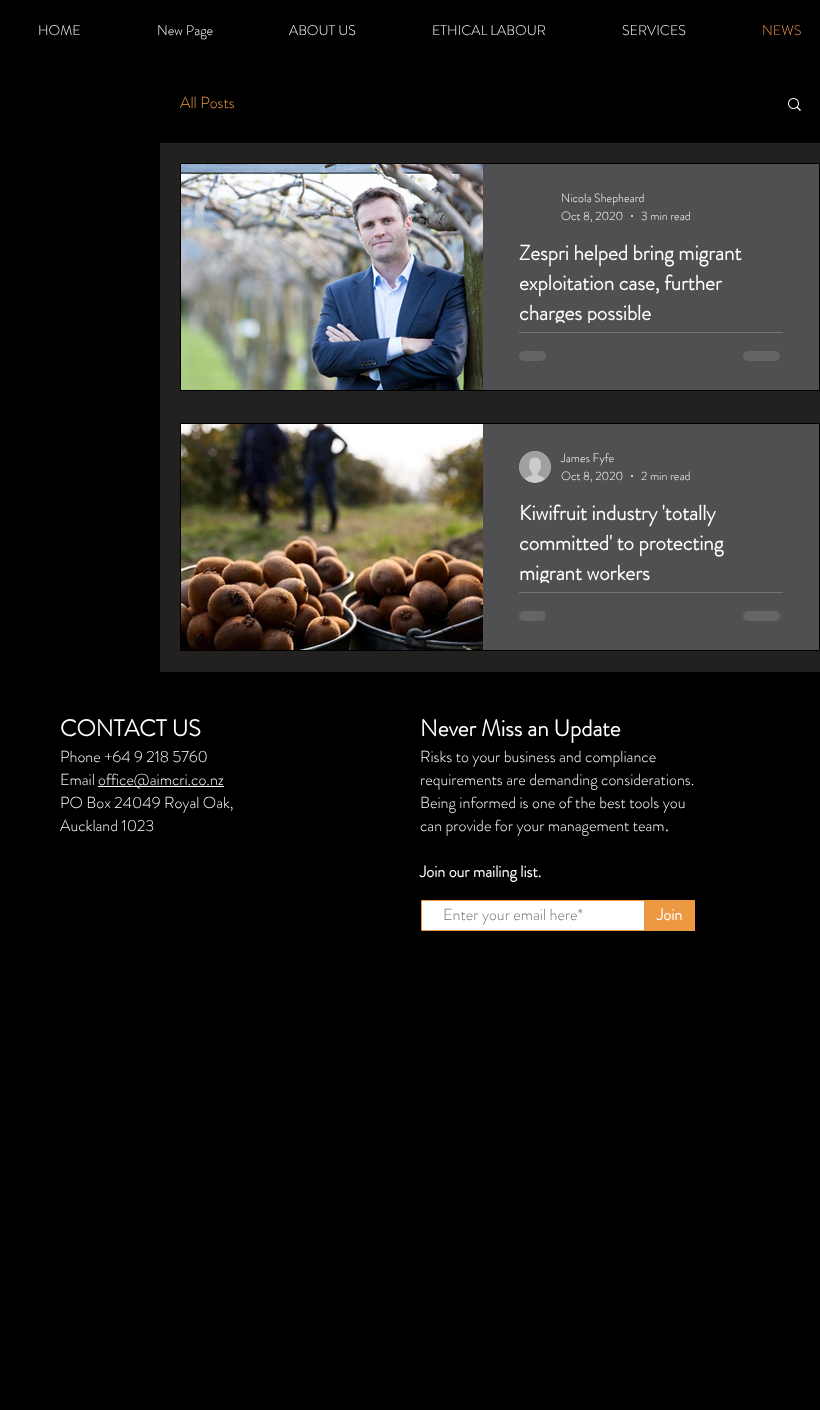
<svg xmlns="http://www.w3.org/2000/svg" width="820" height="1410">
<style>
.a{font:300 14px 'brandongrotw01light';fill:#fff}
.b{font:300 14px 'brandongrotw01light';fill:#ed9942}
.c{font:300 16px 'brandongrotw01light';fill:#ed9942}
.d{font:300 12px 'brandongrotw01light';fill:#fff}
.e{font:bold 21px 'brandongrotw01light';fill:#fff}
.f{font:bold 23px 'brandongrotw01light';fill:#fff}
.g{font:300 16px 'brandongrotw01light';fill:#fff}
.h{font:bold 16px 'brandongrotw01light';fill:#fff}
.i{font:300 16px 'brandongrotw01light';fill:#72716f}
</style>
<defs>
<clipPath id="clip1"><path d="M519 238h264v85H519z"/></clipPath>
<clipPath id="clip2"><path d="M519 498h264v85H519z"/></clipPath>
</defs>
<rect width="100%" height="100%" fill="#000"/>
<path fill="#222120" d="M160 143h660v529H160z"/>
<image href="1.png" x="788" y="98" width="13" height="13"/>
<path fill="none" stroke="#000" d="M180.5 163.5h639v227H180.5z"/>
<image href="2.png" x="181" y="164" width="302" height="226"/>
<path fill="#505052" d="M483 164h336v226H483z"/>
<circle fill="#fff" cx="632" cy="216" r="1"/>
<path fill="#737375" d="M519 332h264v1H519z"/>
<rect fill="#656567" x="519" y="351" width="27" height="10" rx="5"/>
<rect fill="#656567" x="743" y="351" width="37" height="10" rx="5"/>
<path fill="none" stroke="#000" d="M180.5 423.5h639v227H180.5z"/>
<image href="3.png" x="181" y="424" width="302" height="226"/>
<path fill="#505052" d="M483 424h336v226H483z"/>
<image href="4.png" x="519" y="451" width="32" height="32"/>
<circle fill="#fff" cx="632" cy="476" r="1"/>
<path fill="#737375" d="M519 592h264v1H519z"/>
<rect fill="#656567" x="519" y="611" width="27" height="10" rx="5"/>
<rect fill="#656567" x="743" y="611" width="37" height="10" rx="5"/>
<path fill="#fff" d="M98 786h126v1H98z"/>
<path fill="#fff" stroke="#ed9942" d="M421.5 900.5h223v30H421.5z"/>
<path fill="#ed9942" d="M645 900h50v31H645z"/>
<text class="a" x="38" y="35">HOME</text>
<text class="a" x="157" y="35">New Page</text>
<text class="a" x="289" y="35">ABOUT US</text>
<text class="a" x="432" y="35">ETHICAL LABOUR</text>
<text class="a" x="622" y="35">SERVICES</text>
<text class="b" x="762" y="35">NEWS</text>
<text class="c" x="180" y="108">All Posts</text>
<text class="d" x="561" y="202">Nicola Shepheard</text>
<text class="d" x="561" y="220">Oct 8, 2020</text>
<text class="d" x="641" y="220">3 min read</text>
<text class="e" x="519" y="260">Zespri helped bring migrant</text>
<text class="e" x="519" y="290">exploitation case, further</text>
<g clip-path="url(#clip1)">
<text class="e" x="519" y="320">charges possible</text>
</g>
<text class="d" x="561" y="462">James Fyfe</text>
<text class="d" x="561" y="480">Oct 8, 2020</text>
<text class="d" x="641" y="480">2 min read</text>
<text class="e" x="519" y="520">Kiwifruit industry 'totally</text>
<text class="e" x="519" y="550">committed' to protecting</text>
<g clip-path="url(#clip2)">
<text class="e" x="519" y="580">migrant workers</text>
</g>
<text class="f" x="60" y="736">CONTACT US</text>
<text class="g" x="60" y="762">Phone +64 9 218 5760</text>
<text class="g" x="60" y="785">Email</text>
<text class="g" x="98" y="785">office@aimcri.co.nz</text>
<text class="g" x="60" y="808">PO Box 24049 Royal Oak,</text>
<text class="g" x="60" y="831">Auckland 1023</text>
<text class="f" x="420" y="736">Never Miss an Update</text>
<text class="g" x="420" y="762">Risks to your business and compliance</text>
<text class="g" x="420" y="785">requirements are demanding considerations.</text>
<text class="g" x="420" y="808">Being informed is one of the best tools you</text>
<text class="g" x="420" y="831">can provide for your management team</text>
<text class="h" x="665" y="831">.</text>
<text class="h" x="420" y="877">Join our mailing list.</text>
<text class="i" x="443" y="920">Enter your email here*</text>
<text class="h" x="657" y="920">Join</text>
</svg>
